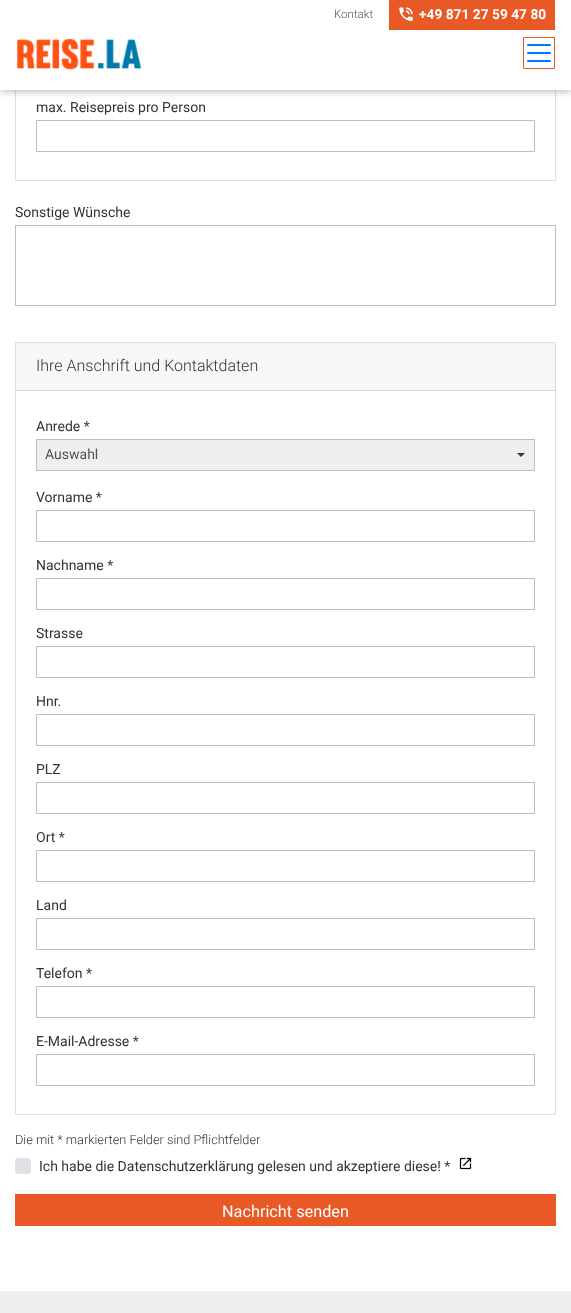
<svg xmlns="http://www.w3.org/2000/svg" width="571" height="1313">
<style>
.a{font:300 11.5px Roboto;fill:#535353}
.b{font:bold 13.75px Roboto;fill:#fff}
.c{font:14px Roboto;fill:#333}
.d{font:300 16px Roboto;fill:#333}
.e{font:14px Roboto;fill:#535353}
.f{font:300 12.75px Roboto;fill:#333}
.g{font:16.25px Roboto;fill:#fff}
</style>
<rect width="100%" height="100%" fill="#fff"/>
<path fill="none" stroke="#dfdfdf" d="M15.5 -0.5h540v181H15.5z"/>
<path fill="#0000004d" filter="blur(4px)" d="M1 1h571v90H1z"/>
<path fill="#fff" d="M0 0h571v90H0z"/>
<path fill="#e85926" d="M389 0h166v30H389z"/>
<image href="1.png" x="399" y="7" width="14" height="14"/>
<image href="2.png" x="16" y="38" width="125" height="32"/>
<path fill="none" stroke="#e85926" d="M523.5 37.5h31v31H523.5z"/>
<image href="3.png" x="527" y="44" width="24" height="18"/>
<path fill="none" stroke="#bdbdbd" d="M36.5 120.5h498v31H36.5z"/>
<path fill="none" stroke="#bdbdbd" d="M15.5 225.5h540v80H15.5z"/>
<path fill="none" stroke="#dfdfdf" d="M15.5 342.5h540v772H15.5z"/>
<path fill="#f7f7f7" d="M19 343h533c1.5 0 3 1.5 3 3v45h-539v-45c0-1.5 1.5-3 3-3z"/>
<path fill="#d8d8d8" d="M16 390h539v1H16z"/>
<path fill="#efefef" stroke="#bdbdbd" d="M36.5 439.5h498v31H36.5z"/>
<path fill="#383838" d="M517 453h8l-4 4z"/>
<path fill="none" stroke="#bdbdbd" d="M36.5 510.5h498v31H36.5z"/>
<path fill="none" stroke="#bdbdbd" d="M36.5 578.5h498v31H36.5z"/>
<path fill="none" stroke="#bdbdbd" d="M36.5 646.5h498v31H36.5z"/>
<path fill="none" stroke="#bdbdbd" d="M36.5 714.5h498v31H36.5z"/>
<path fill="none" stroke="#bdbdbd" d="M36.5 782.5h498v31H36.5z"/>
<path fill="none" stroke="#bdbdbd" d="M36.5 850.5h498v31H36.5z"/>
<path fill="none" stroke="#bdbdbd" d="M36.5 918.5h498v31H36.5z"/>
<path fill="none" stroke="#bdbdbd" d="M36.5 986.5h498v31H36.5z"/>
<path fill="none" stroke="#bdbdbd" d="M36.5 1054.5h498v31H36.5z"/>
<rect fill="#dee2e6" x="15" y="1158" width="16" height="16" rx="4"/>
<image href="4.png" x="459" y="1157" width="13" height="13"/>
<path fill="#e85926" d="M15 1194h541v32H15z"/>
<path fill="#eee" d="M0 1291h571v22H0z"/>
<text class="a" x="334" y="18">Kontakt</text>
<text class="b" x="419" y="19">+49 871 27 59 47 80</text>
<text class="c" x="36" y="112">max. Reisepreis pro Person</text>
<text class="c" x="15" y="217">Sonstige Wünsche</text>
<text class="d" x="36" y="371">Ihre Anschrift und Kontaktdaten</text>
<text class="c" x="36" y="431">Anrede *</text>
<text class="e" x="45" y="459">Auswahl</text>
<text class="c" x="36" y="502">Vorname *</text>
<text class="c" x="36" y="570">Nachname *</text>
<text class="c" x="36" y="638">Strasse</text>
<text class="c" x="36" y="706">Hnr.</text>
<text class="c" x="36" y="774">PLZ</text>
<text class="c" x="36" y="842">Ort *</text>
<text class="c" x="36" y="910">Land</text>
<text class="c" x="36" y="978">Telefon *</text>
<text class="c" x="36" y="1046">E-Mail-Adresse *</text>
<text class="f" x="15" y="1144">Die mit * markierten Felder sind Pflichtfelder</text>
<text class="c" x="39" y="1171">Ich habe die Datenschutzerklärung gelesen und akzeptiere diese! *</text>
<text class="g" x="222" y="1217">Nachricht senden</text>
</svg>
